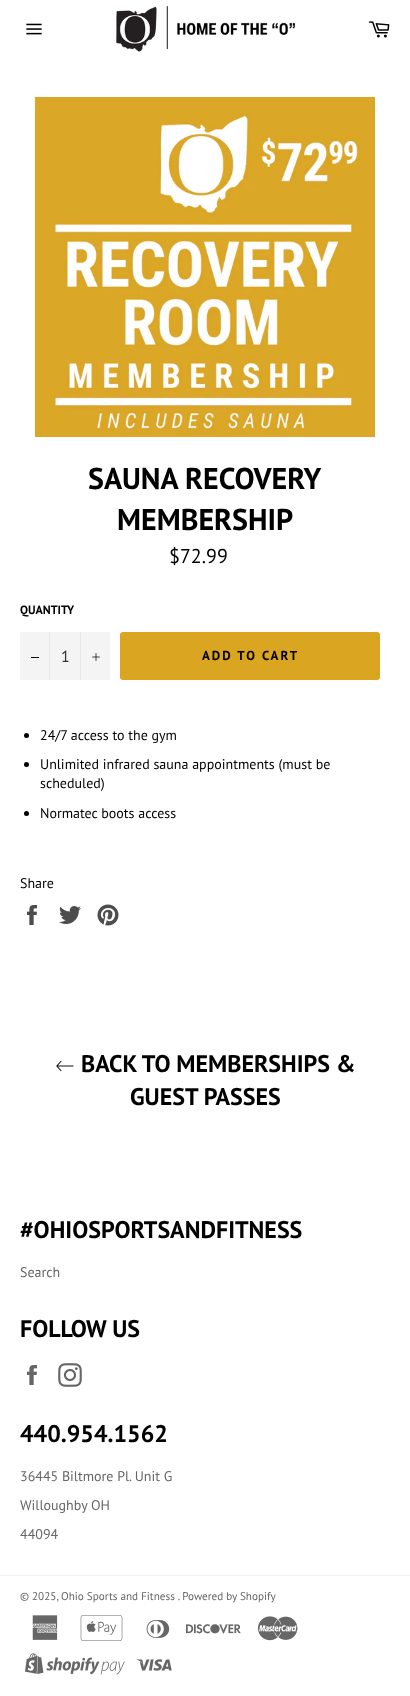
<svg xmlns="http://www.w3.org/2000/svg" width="410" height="1696">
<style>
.a{font:bold 30px PT Sans;fill:#000}
.b{font:20px PT Sans;fill:#000}
.c{font:bold 12px PT Sans;fill:#000}
.d{font:16px PT Sans;fill:#333}
.e{font:bold 13px PT Sans;letter-spacing:2px;fill:#000}
.f{font:14px PT Sans;fill:#000}
.g{font:bold 24px PT Sans;fill:#000}
.h{font:14px PT Sans;fill:#666}
.i{font:11.2px PT Sans;fill:#666}
</style>
<rect width="100%" height="100%" fill="#fff"/>
<image href="1.png" x="26" y="23" width="16" height="12"/>
<image href="2.png" x="116" y="6" width="180" height="46"/>
<image href="3.png" x="368" y="21" width="22" height="17"/>
<image href="4.png" x="35" y="97" width="340" height="340"/>
<path fill="#f4f4f4" d="M20 632h90v48H20z"/>
<path fill="#e7e7e7" d="M49 632h1v48H49z"/>
<path fill="#000" d="M31 657h8v1H31z"/>
<path fill="#e7e7e7" d="M80 632h1v48H80z"/>
<image href="5.png" x="92" y="653" width="8" height="8"/>
<rect fill="#daa520" x="120" y="632" width="260" height="48" rx="3"/>
<circle fill="#000" cx="26.5" cy="735.5" r="2.5"/>
<circle fill="#000" cx="26.5" cy="764.5" r="2.5"/>
<circle fill="#000" cx="26.5" cy="813.5" r="2.5"/>
<image href="6.png" x="27" y="905" width="10" height="20"/>
<image href="7.png" x="59" y="906" width="22" height="18"/>
<image href="8.png" x="97" y="904" width="22" height="22"/>
<image href="9.png" x="56" y="1060" width="18" height="12"/>
<image href="10.png" x="27" y="1365" width="10" height="20"/>
<image href="11.png" x="58" y="1363" width="24" height="24"/>
<path fill="#f2f2f2" d="M0 1575h410v1H0z"/>
<image href="12.png" x="32" y="1615" width="26" height="25"/>
<image href="13.png" x="80" y="1615" width="43" height="26"/>
<image href="14.png" x="146" y="1620" width="24" height="18"/>
<image href="15.png" x="186" y="1624" width="55" height="10"/>
<image href="16.png" x="258" y="1616" width="40" height="25"/>
<image href="17.png" x="25" y="1653" width="100" height="22"/>
<image href="18.png" x="136" y="1659" width="36" height="12"/>
<text class="a" x="88" y="489">SAUNA RECOVERY</text>
<text class="a" x="117" y="530">MEMBERSHIP</text>
<text class="b" x="169" y="563">$72.99</text>
<text class="c" x="20" y="614">QUANTITY</text>
<text class="d" x="61" y="662">1</text>
<text class="e" x="202" y="660">ADD TO CART</text>
<text class="f" x="40" y="740">24/7 access to the gym</text>
<text class="f" x="40" y="769">Unlimited infrared sauna appointments (must be</text>
<text class="f" x="40" y="788">scheduled)</text>
<text class="f" x="40" y="818">Normatec boots access</text>
<text class="f" x="20" y="888">Share</text>
<text class="g" x="81" y="1072">BACK TO MEMBERSHIPS &amp;</text>
<text class="g" x="130" y="1105">GUEST PASSES</text>
<text class="g" x="20" y="1238">#OHIOSPORTSANDFITNESS</text>
<text class="h" x="20" y="1277">Search</text>
<text class="g" x="20" y="1337">FOLLOW US</text>
<text class="g" x="20" y="1442">440.954.1562</text>
<text class="h" x="20" y="1481">36445 Biltmore Pl. Unit G</text>
<text class="h" x="20" y="1510">Willoughby OH</text>
<text class="h" x="20" y="1539">44094</text>
<text class="i" x="20" y="1600">© 2025, Ohio Sports and Fitness . Powered by Shopify</text>
</svg>
